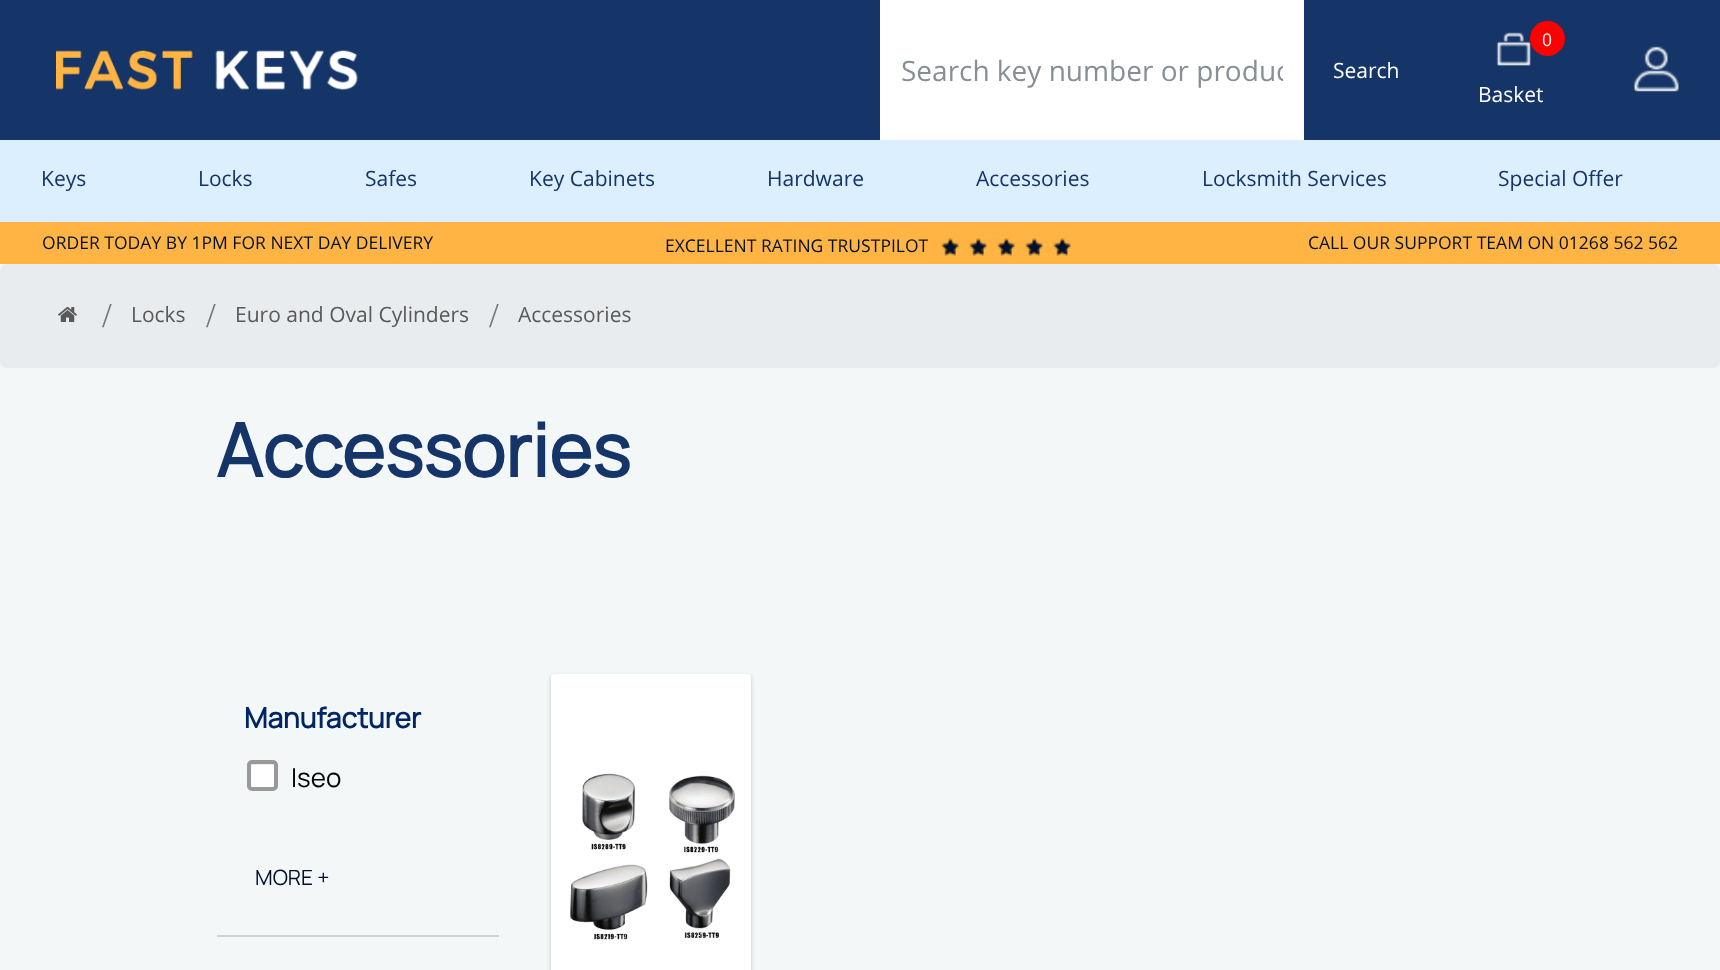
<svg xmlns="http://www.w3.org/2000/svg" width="1720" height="970">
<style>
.a{font:28px Open Sans;fill:#868e96}
.b{font:21px Open Sans;fill:#fff}
.c{font:17.5px Open Sans;fill:#fff}
.d{font:21px Open Sans;fill:#153467}
.e{font:17.5px Open Sans;fill:#011028}
.f{font:35px Liberation Serif;fill:#777}
.g{font:21px Open Sans;fill:#595959}
.h{font:bold 73.5px Manrope;fill:#153467}
.i{font:bold 28px Manrope;fill:#002564}
.j{font:200 26px Manrope;fill:#000}
.k{font:200 21px Manrope;fill:#011028}
</style>
<defs>
<clipPath id="clip1"><path d="M901 51h382v38H901z"/></clipPath>
</defs>
<rect width="100%" height="100%" fill="#f3f7f8"/>
<path fill="#153467" d="M0 0h1720v140H0z"/>
<image href="1.png" x="56" y="50" width="302" height="40"/>
<path fill="#fff" d="M880 0h424v140H880z"/>
<image href="2.png" x="1496" y="32" width="35" height="34"/>
<circle fill="#f00" cx="1547.5" cy="38.5" r="17.5"/>
<image href="3.png" x="1633" y="46" width="46" height="46"/>
<path fill="#dcefff" d="M0 140h1720v82H0z"/>
<path fill="#ffb443" d="M0 222h1720v42H0z"/>
<image href="4.png" x="941" y="238" width="18" height="18"/>
<image href="4.png" x="969" y="238" width="18" height="18"/>
<image href="4.png" x="997" y="238" width="18" height="18"/>
<image href="5.png" x="1025" y="238" width="18" height="18"/>
<image href="5.png" x="1053" y="238" width="18" height="18"/>
<rect fill="#e9ecef" y="264" width="1720" height="104" rx="7"/>
<image href="6.png" x="58" y="307" width="19" height="15"/>
<path fill="#cdd2d4" d="M217 935h282v2H217z"/>
<rect fill="#fff" x="247" y="760" width="31" height="31" rx="5"/>
<path fill="#ececec" d="M252 765h21.5l1.5 1c0-4-2-3-5.5-3h-14c-3.5 0-5.5-1-5.5 3z"/>
<rect fill="none" stroke="#999" stroke-width="4" x="249" y="762" width="27" height="27" rx="3"/>
<rect fill="#00000033" filter="blur(2px)" x="551" y="676" width="200" height="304" rx="4"/>
<rect fill="#fff" x="551" y="674" width="200" height="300" rx="4"/>
<image href="7.png" x="569" y="773" width="166" height="167"/>
<g clip-path="url(#clip1)">
<text class="a" x="901" y="81">Search key number or produc</text>
</g>
<text class="b" x="1333" y="78">Search</text>
<text class="c" x="1542" y="46">0</text>
<text class="b" x="1478" y="102">Basket</text>
<text class="d" x="41" y="186">Keys</text>
<text class="d" x="198" y="186">Locks</text>
<text class="d" x="365" y="186">Safes</text>
<text class="d" x="529" y="186">Key Cabinets</text>
<text class="d" x="767" y="186">Hardware</text>
<text class="d" x="976" y="186">Accessories</text>
<text class="d" x="1202" y="186">Locksmith Services</text>
<text class="d" x="1498" y="186">Special Offer</text>
<text class="e" x="42" y="249">ORDER TODAY BY 1PM FOR NEXT DAY DELIVERY</text>
<text class="e" x="665" y="252">EXCELLENT RATING TRUSTPILOT</text>
<text class="e" x="1308" y="249">CALL OUR SUPPORT TEAM ON 01268 562 562</text>
<text class="f" x="102" y="327">/</text>
<text class="g" x="131" y="322">Locks</text>
<text class="f" x="206" y="327">/</text>
<text class="g" x="235" y="322">Euro and Oval Cylinders</text>
<text class="f" x="489" y="327">/</text>
<text class="g" x="518" y="322">Accessories</text>
<text class="h" x="216" y="477">Accessories</text>
<text class="i" x="244" y="728">Manufacturer</text>
<text class="j" x="291" y="787">Iseo</text>
<text class="k" x="255" y="885">MORE +</text>
</svg>
